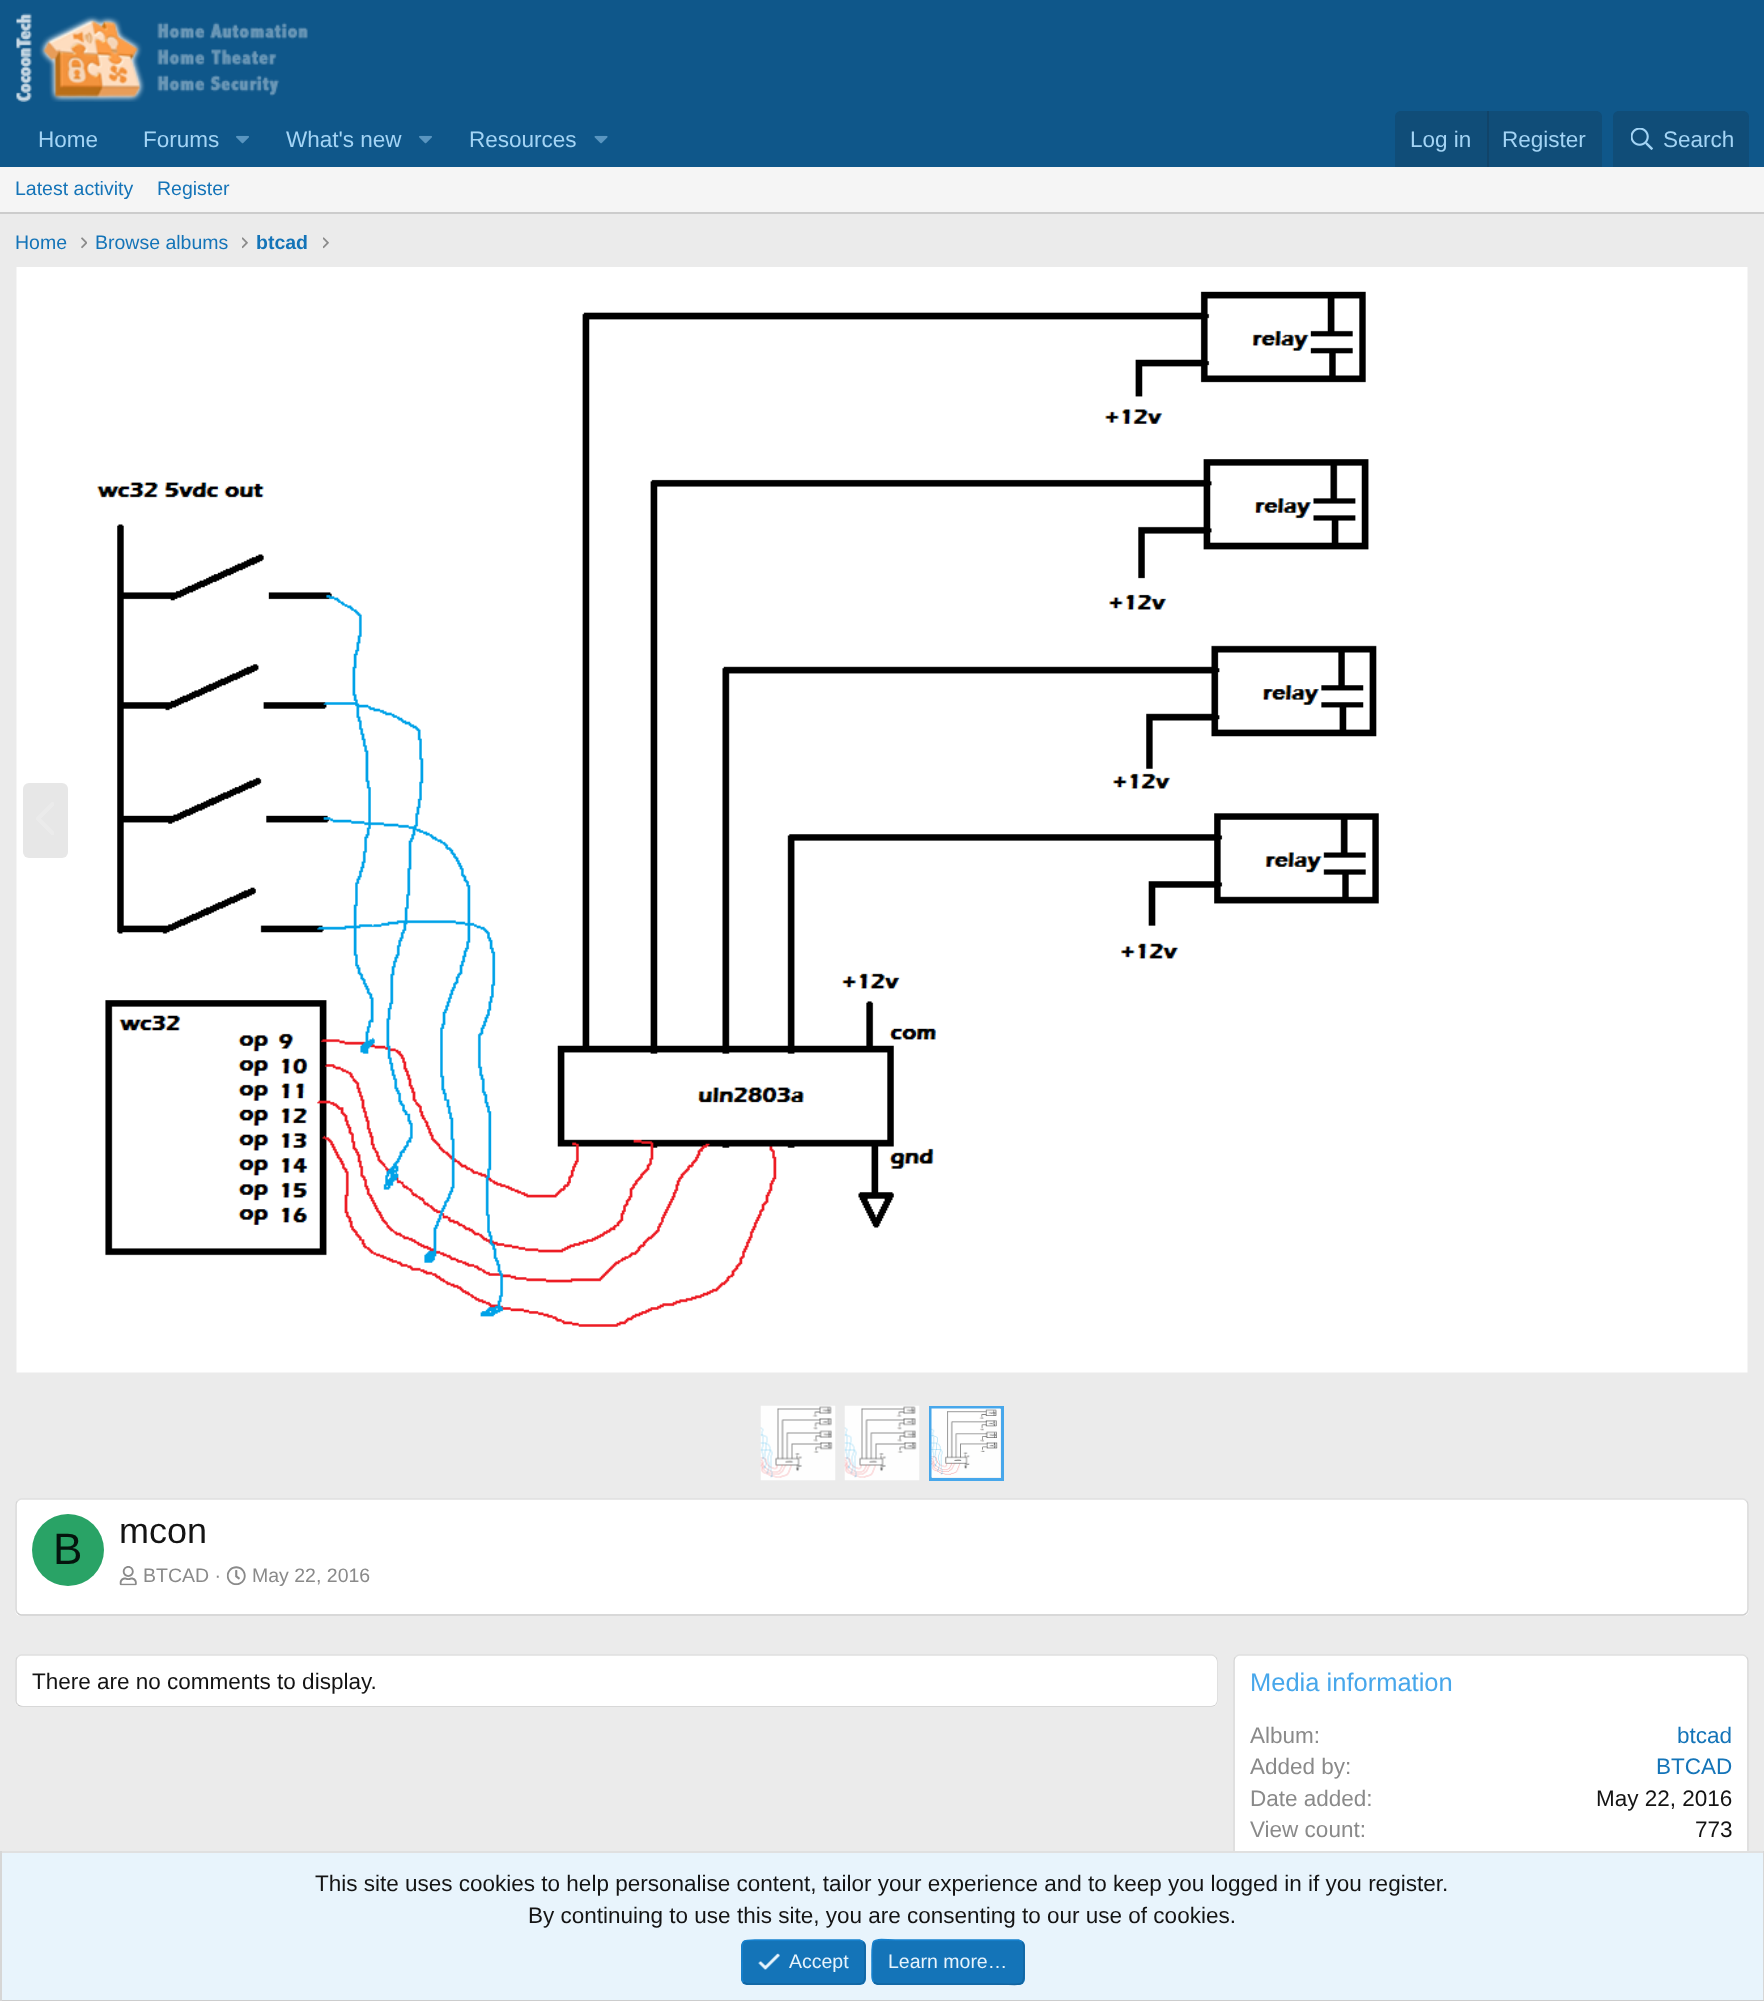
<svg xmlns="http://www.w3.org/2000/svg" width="1764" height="2001">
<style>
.a{font:22.5px Liberation Sans;fill:#a3d4f5}
.b{font:19.5px Liberation Sans;fill:#1474b8}
.c{font:bold 19.5px Liberation Sans;fill:#1474b8}
.d{font:44px Liberation Sans;fill:#05140d}
.e{font:36px Liberation Sans;fill:#141414}
.f{font:19.5px Liberation Sans;fill:#8a8a8a}
.g{font:22.5px Liberation Sans;fill:#141414}
.h{font:25.5px Liberation Sans;fill:#47a7eb}
.i{font:22.5px Liberation Sans;fill:#8a8a8a}
.j{font:22.5px Liberation Sans;fill:#1474b8}
.k{font:19.5px Liberation Sans;fill:#e8f4fc}
</style>
<rect width="100%" height="100%" fill="#ebebeb"/>
<path fill="#0f578a" d="M0 0h1764v167H0z"/>
<image href="1.png" x="16" y="13" width="292" height="89"/>
<image href="2.png" x="236" y="135" width="13" height="9"/>
<image href="2.png" x="419" y="135" width="13" height="9"/>
<image href="3.png" x="594" y="135" width="14" height="9"/>
<path fill="#104d78" d="M1401 111h195c3.5 0 6 2.5 6 6v50h-207v-50c0-3.5 2.5-6 6-6z"/>
<path fill="#114469" d="M1487 111h2v56H1487z"/>
<path fill="#104d78" d="M1619 111h124c3.5 0 6 2.5 6 6v50h-136v-50c0-3.5 2.5-6 6-6z"/>
<image href="4.png" x="1631" y="128" width="22" height="22"/>
<path fill="#f5f5f5" d="M0 167h1764v45H0z"/>
<path fill="#ccc" d="M0 212h1764v2H0z"/>
<image href="5.png" x="81" y="237" width="6" height="12"/>
<image href="6.png" x="242" y="237" width="6" height="12"/>
<image href="6.png" x="323" y="237" width="6" height="12"/>
<image href="7.png" x="16" y="267" width="1732" height="1106"/>
<rect fill="#e7e7e7" x="23" y="783" width="45" height="75" rx="6"/>
<image href="8.png" x="36" y="802" width="18" height="33"/>
<image href="9.png" x="760" y="1405" width="76" height="76"/>
<image href="9.png" x="844" y="1405" width="76" height="76"/>
<path fill="none" stroke="#47a7eb" stroke-width="3" d="M930.5 1407.5h72v72H930.5z"/>
<image href="10.png" x="931" y="1408" width="70" height="70"/>
<rect fill="#fff" x="15" y="1499" width="1734" height="117" rx="6"/>
<path fill="none" stroke="#e0e0e0" stroke-width="1.5" d="M17.5 1501c1-1 2-2 3.5-2h1722c1.5 0 2.5 1 3.5 2"/>
<path fill="none" stroke="#d6d6d6" stroke-width="1.5" d="M1746.5 1501c1 1 1.5 2 1.5 3.5v105c0 1.5-.5 2.5-1.5 3.5"/>
<path fill="none" stroke="#ccc" stroke-width="1.5" d="M1746.5 1613c-1 1-2 2-3.5 2h-1722c-1.5 0-2.5-1-3.5-2"/>
<path fill="none" stroke="#d6d6d6" stroke-width="1.5" d="M17.5 1613c-1-1-1.5-2-1.5-3.5v-105c0-1.5 .5-2.5 1.5-3.5"/>
<circle fill="#29a366" cx="68" cy="1550" r="36"/>
<image href="11.png" x="119" y="1566" width="18" height="20"/>
<image href="12.png" x="226" y="1566" width="20" height="20"/>
<rect fill="#fff" x="15" y="1655" width="1203" height="52" rx="6"/>
<path fill="none" stroke="#e0e0e0" stroke-width="1.5" d="M17.5 1657c1-1 2-2 3.5-2h1191c1.5 0 2.5 1 3.5 2"/>
<path fill="none" stroke="#d6d6d6" stroke-width="1.5" d="M1215.5 1657c1 1 1.5 2 1.5 3.5v40.5c0 1.5-.5 2.5-1.5 3.5"/>
<path fill="none" stroke="#ccc" stroke-width="1.5" d="M1215.5 1704.5c-1 1-2 1.5-3.5 1.5h-1191c-1.5 0-2.5-.5-3.5-1.5"/>
<path fill="none" stroke="#d6d6d6" stroke-width="1.5" d="M17.5 1704.5c-1-1-1.5-2-1.5-3.5v-40.5c0-1.5 .5-2.5 1.5-3.5"/>
<rect fill="#fff" x="17" y="1656" width="1200" height="50" rx="6"/>
<rect fill="#fff" x="1233" y="1655" width="516" height="295" rx="6"/>
<path fill="none" stroke="#e0e0e0" stroke-width="1.5" d="M1235.5 1657c1-1 2-2 3.5-2h504c1.5 0 2.5 1 3.5 2"/>
<path fill="none" stroke="#d6d6d6" stroke-width="1.5" d="M1746.5 1657c1 1 1.5 2 1.5 3.5v283.5c0 1.5-.5 2.5-1.5 3.5"/>
<path fill="none" stroke="#d6d6d6" stroke-width="1.5" d="M1235.5 1947.5c-1-1-1.5-2-1.5-3.5v-283.5c0-1.5 .5-2.5 1.5-3.5"/>
<path fill="#e8f4fc" d="M2 1853h1761v147H2z"/>
<path fill="#e0e0e0" d="M0 1851h1764v2H0z"/>
<path fill="#d6d6d6" d="M1763 1851h1v150H1763z"/>
<path fill="#ccc" d="M0 2000h1764v1H0z"/>
<path fill="#d6d6d6" d="M0 1851h2v150H0z"/>
<rect fill="#1474b8" x="741" y="1940" width="125" height="45" rx="6"/>
<path fill="none" stroke="#1265a1" stroke-width="1.5" d="M863 1942c2.5 2 2 6 2 9v11c0 25.5 3 22-24 22h-94c-1.5-.5-2.5-1-3.5-2"/>
<path fill="none" stroke="#1782cf" stroke-width="1.5" d="M743.5 1982c-2.5-2-1.5-6-1.5-9v-11c0-25.5-3.5-22 24-22h93.5c1.5 .5 2.5 1 3.5 2"/>
<image href="13.png" x="758" y="1953" width="22" height="17"/>
<rect fill="#1474b8" x="872" y="1940" width="153" height="45" rx="6"/>
<path fill="none" stroke="#1265a1" stroke-width="1.5" d="M1022 1942c2.5 2 2 6 2 9v11c0 27.5 2.5 22-29 22h-117.5c-1.5-.5-2.5-1-3.5-2"/>
<path fill="none" stroke="#1782cf" stroke-width="1.5" d="M874 1982c-2.5-2-2-6-2-9v-11c0-27.5-2.5-22 29-22h117.5c1.5 .5 2.5 1 3.5 2"/>
<text class="a" x="38" y="147">Home</text>
<text class="a" x="143" y="147">Forums</text>
<text class="a" x="286" y="147">What's new</text>
<text class="a" x="469" y="147">Resources</text>
<text class="a" x="1410" y="147">Log in</text>
<text class="a" x="1502" y="147">Register</text>
<text class="a" x="1663" y="147">Search</text>
<text class="b" x="15" y="195">Latest activity</text>
<text class="b" x="157" y="195">Register</text>
<text class="b" x="15" y="249">Home</text>
<text class="b" x="95" y="249">Browse albums</text>
<text class="c" x="256" y="249">btcad</text>
<text class="d" x="53" y="1564">B</text>
<text class="e" x="119" y="1543">mcon</text>
<text class="f" x="143" y="1582">BTCAD ·</text>
<text class="f" x="252" y="1582">May 22, 2016</text>
<text class="g" x="32" y="1689">There are no comments to display.</text>
<text class="h" x="1250" y="1691">Media information</text>
<text class="i" x="1250" y="1743">Album:</text>
<text class="j" x="1677" y="1743">btcad</text>
<text class="i" x="1250" y="1774">Added by:</text>
<text class="j" x="1656" y="1774">BTCAD</text>
<text class="i" x="1250" y="1806">Date added:</text>
<text class="g" x="1596" y="1806">May 22, 2016</text>
<text class="i" x="1250" y="1837">View count:</text>
<text class="g" x="1695" y="1837">773</text>
<text class="g" x="315" y="1891">This site uses cookies to help personalise content, tailor your experience and to keep you logged in if you register.</text>
<text class="g" x="528" y="1923">By continuing to use this site, you are consenting to our use of cookies.</text>
<text class="k" x="789" y="1968">Accept</text>
<text class="k" x="888" y="1968">Learn more…</text>
</svg>
